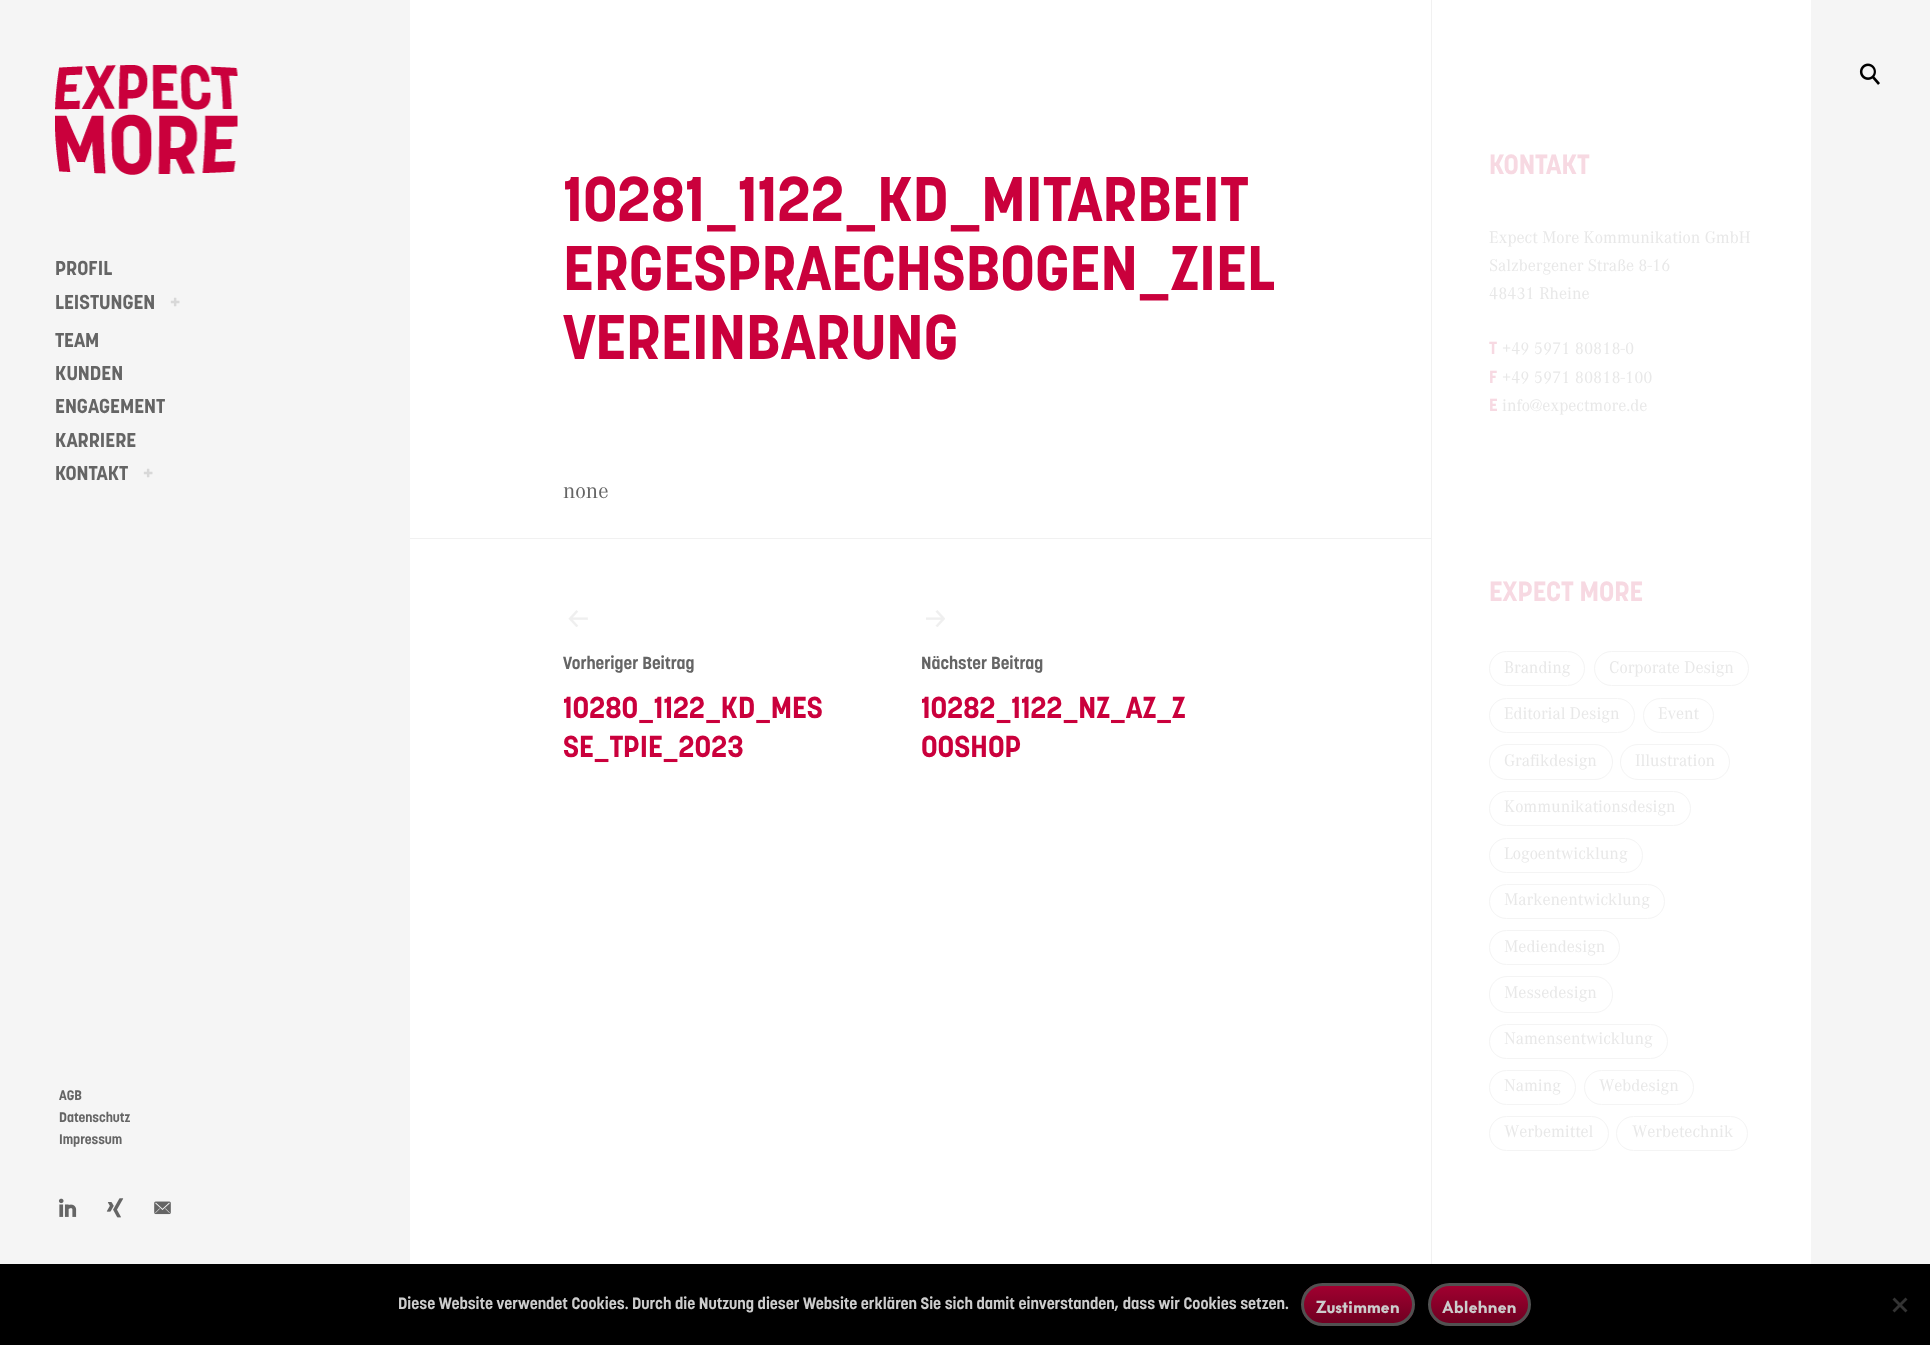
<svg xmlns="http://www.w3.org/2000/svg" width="1930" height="1345">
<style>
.a{font:bold 20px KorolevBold;fill:#656565}
.b{font:bold 20px KorolevBold;fill:#d8d8d8}
.c{font:bold 62.5px KorolevBold;fill:#ca003c}
.d{font:22.5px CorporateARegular;fill:#656565}
.e{font:bold 17.5px KorolevBold;fill:#656565}
.f{font:bold 30px KorolevBold;fill:#ca003c}
.g{font:bold 27.5px KorolevBold;fill:#f7d9e2}
.h{font:17.5px CorporateARegular;fill:#e8e8e8}
.i{font:bold 17.5px KorolevBold;fill:#f7d9e2}
.j{font:bold 13.75px KorolevBold;fill:#656565}
.k{font:bold 16.25px KorolevBold;fill:#ccc}
.l{font:900 16.25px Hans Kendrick;fill:#ccc}
</style>
<defs>
<clipPath id="clip1"><rect x="1301" y="1283" width="114" height="43" rx="21.5"/></clipPath>
<linearGradient id="g1" gradientUnits="userSpaceOnUse" x1="1358" y1="1285" x2="1358" y2="1324"><stop offset="0" stop-color="#a20030"/><stop offset="1" stop-color="#6e0021"/></linearGradient>
<clipPath id="clip2"><rect x="1428" y="1283" width="103" height="43" rx="21.5"/></clipPath>
<linearGradient id="g2" gradientUnits="userSpaceOnUse" x1="1479" y1="1285" x2="1479" y2="1324"><stop offset="0" stop-color="#a20030"/><stop offset="1" stop-color="#6e0021"/></linearGradient>
</defs>
<rect width="100%" height="100%" fill="#f5f5f5"/>
<image href="1.png" x="1859" y="63" width="21" height="22"/>
<image href="2.png" x="55" y="65" width="183" height="110"/>
<path fill="#fff" d="M410 0h1401v1264H410z"/>
<path fill="#f1f1f1" d="M1431 0h1v1264H1431z"/>
<path fill="#f1f1f1" d="M410 538h1021v1H410z"/>
<image href="3.png" x="568" y="610" width="20" height="17"/>
<image href="4.png" x="926" y="610" width="19" height="17"/>
<rect fill="none" stroke="#f4f4f4" x="1489.5" y="651.5" width="95" height="34" rx="17"/>
<rect fill="none" stroke="#f4f4f4" x="1594.5" y="651.5" width="154" height="34" rx="17"/>
<rect fill="none" stroke="#f4f4f4" x="1489.5" y="698.5" width="145" height="34" rx="17"/>
<rect fill="none" stroke="#f4f4f4" x="1643.5" y="698.5" width="70" height="34" rx="17"/>
<rect fill="none" stroke="#f4f4f4" x="1489.5" y="744.5" width="123" height="35" rx="17.5"/>
<rect fill="none" stroke="#f4f4f4" x="1620.5" y="744.5" width="109" height="35" rx="17.5"/>
<rect fill="none" stroke="#f4f4f4" x="1489.5" y="791.5" width="201" height="34" rx="17"/>
<rect fill="none" stroke="#f4f4f4" x="1489.5" y="838.5" width="153" height="34" rx="17"/>
<rect fill="none" stroke="#f4f4f4" x="1489.5" y="884.5" width="175" height="34" rx="17"/>
<rect fill="none" stroke="#f4f4f4" x="1489.5" y="930.5" width="130" height="34" rx="17"/>
<rect fill="none" stroke="#f4f4f4" x="1489.5" y="976.5" width="123" height="36" rx="17.5"/>
<rect fill="none" stroke="#f4f4f4" x="1489.5" y="1024.5" width="178" height="34" rx="17"/>
<rect fill="none" stroke="#f4f4f4" x="1489.5" y="1070.5" width="86" height="34" rx="17"/>
<rect fill="none" stroke="#f4f4f4" x="1584.5" y="1070.5" width="109" height="34" rx="17"/>
<rect fill="none" stroke="#f4f4f4" x="1489.5" y="1116.5" width="119" height="34" rx="17"/>
<rect fill="none" stroke="#f4f4f4" x="1616.5" y="1116.5" width="131" height="34" rx="17"/>
<image href="5.png" x="58" y="1198" width="19" height="19"/>
<image href="6.png" x="106" y="1198" width="18" height="20"/>
<image href="7.png" x="154" y="1201" width="17" height="14"/>
<path fill="#000" d="M0 1264h1930v81H0z"/>
<g clip-path="url(#clip1)">
<path fill="url(#g1)" d="M1304 1285h109v39H1304z"/>
</g>
<rect fill="none" stroke="#515151" stroke-width="3" x="1302.5" y="1284.5" width="111" height="40" rx="20"/>
<g clip-path="url(#clip2)">
<path fill="url(#g2)" d="M1430 1285h99v39H1430z"/>
</g>
<rect fill="none" stroke="#515151" stroke-width="3" x="1429.5" y="1284.5" width="100" height="40" rx="20"/>
<path fill="#333" d="M1905.5 1297.5l2 2l-13 13l-2-2z"/>
<path fill="#333" d="M1892.5 1299.5l2-2l13 13l-2 2z"/>
<text class="a" x="55" y="275">PROFIL</text>
<text class="a" x="55" y="309">LEISTUNGEN</text>
<text class="b" x="170" y="309">+</text>
<text class="a" x="55" y="347">TEAM</text>
<text class="a" x="55" y="380">KUNDEN</text>
<text class="a" x="55" y="413">ENGAGEMENT</text>
<text class="a" x="55" y="447">KARRIERE</text>
<text class="a" x="55" y="480">KONTAKT</text>
<text class="b" x="143" y="480">+</text>
<text class="c" x="563" y="221">10281_1122_KD_MITARBEIT</text>
<text class="c" x="563" y="290">ERGESPRAECHSBOGEN_ZIEL</text>
<text class="c" x="563" y="359">VEREINBARUNG</text>
<text class="d" x="563" y="498">none</text>
<text class="e" x="563" y="669">Vorheriger Beitrag</text>
<text class="f" x="563" y="718">10280_1122_KD_MES</text>
<text class="f" x="563" y="757">SE_TPIE_2023</text>
<text class="e" x="921" y="669">Nächster Beitrag</text>
<text class="f" x="921" y="718">10282_1122_NZ_AZ_Z</text>
<text class="f" x="921" y="757">OOSHOP</text>
<text class="g" x="1489" y="174">KONTAKT</text>
<text class="h" x="1489" y="243">Expect More Kommunikation GmbH</text>
<text class="h" x="1489" y="271">Salzbergener Straße 8-16</text>
<text class="h" x="1489" y="299">48431 Rheine</text>
<text class="i" x="1489" y="354">T</text>
<text class="h" x="1502" y="354">+49 5971 80818-0</text>
<text class="i" x="1489" y="383">F</text>
<text class="h" x="1502" y="383">+49 5971 80818-100</text>
<text class="i" x="1489" y="411">E</text>
<text class="h" x="1502" y="411">info@expectmore.de</text>
<text class="g" x="1489" y="601">EXPECT MORE</text>
<text class="h" x="1504" y="673">Branding</text>
<text class="h" x="1609" y="673">Corporate Design</text>
<text class="h" x="1504" y="719">Editorial Design</text>
<text class="h" x="1658" y="719">Event</text>
<text class="h" x="1504" y="766">Grafikdesign</text>
<text class="h" x="1635" y="766">Illustration</text>
<text class="h" x="1504" y="812">Kommunikationsdesign</text>
<text class="h" x="1504" y="859">Logoentwicklung</text>
<text class="h" x="1504" y="905">Markenentwicklung</text>
<text class="h" x="1504" y="952">Mediendesign</text>
<text class="h" x="1504" y="998">Messedesign</text>
<text class="h" x="1504" y="1044">Namensentwicklung</text>
<text class="h" x="1504" y="1091">Naming</text>
<text class="h" x="1599" y="1091">Webdesign</text>
<text class="h" x="1504" y="1137">Werbemittel</text>
<text class="h" x="1632" y="1137">Werbetechnik</text>
<text class="j" x="59" y="1100">AGB</text>
<text class="j" x="59" y="1122">Datenschutz</text>
<text class="j" x="59" y="1144">Impressum</text>
<text class="k" x="398" y="1309">Diese Website verwendet Cookies. Durch die Nutzung dieser Website erklären Sie sich damit einverstanden, dass wir Cookies setzen.</text>
<text class="l" x="1316" y="1313">Zustimmen</text>
<text class="l" x="1442" y="1313">Ablehnen</text>
</svg>
